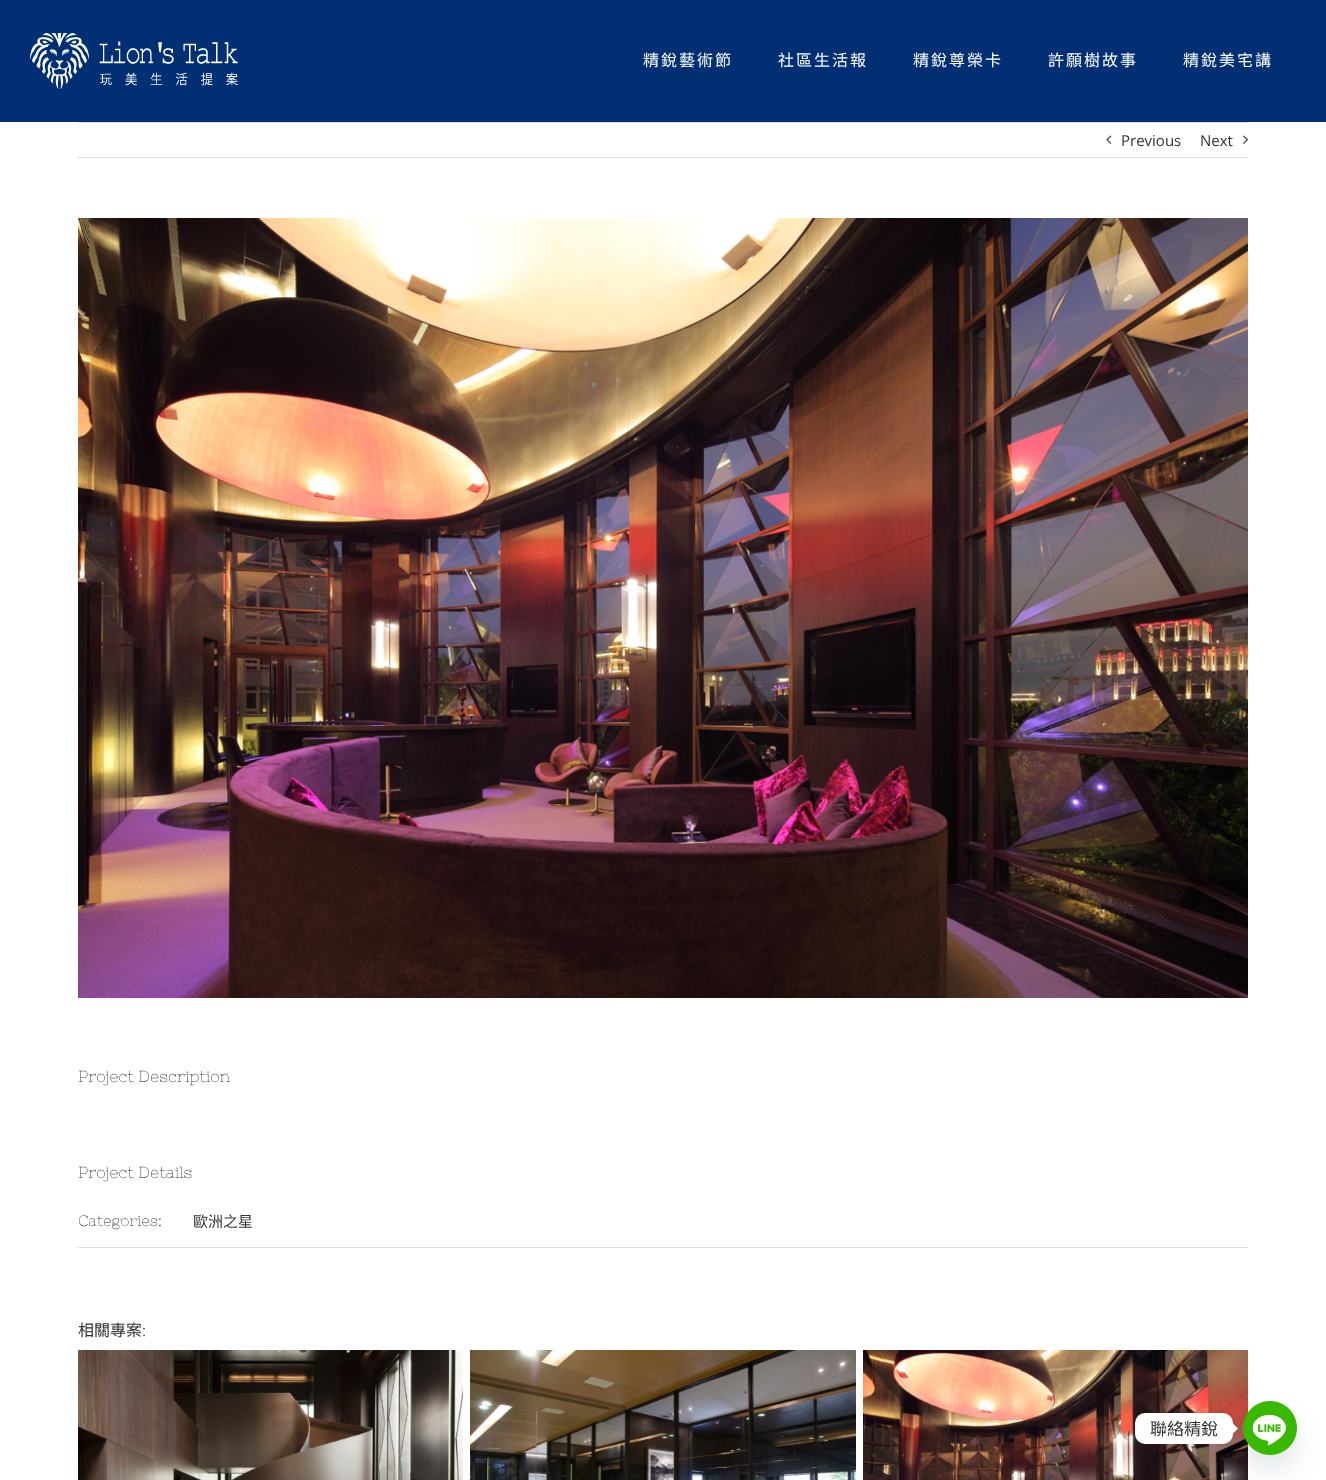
<svg xmlns="http://www.w3.org/2000/svg" width="1326" height="1480">
<style>
.a{font:16px Noto Sans CJK TC;letter-spacing:2px;fill:#fff}
.b{font:15px Open Sans;fill:#333}
.c{font:16px Nixie One;fill:#333}
.d{font:15px Nixie One;fill:#333}
.e{font:15px Noto Sans CJK TC;fill:#333}
.f{font:16px Noto Sans CJK TC;fill:#333}
.g{font:17px Noto Sans CJK TC;fill:#333}
</style>
<rect width="100%" height="100%" fill="#fff"/>
<path fill="#002f74" d="M0 0h1326v122H0z"/>
<image href="1.png" x="30" y="33" width="208" height="56"/>
<path fill="#e0dede" d="M78 122h1170v1H78z"/>
<path fill="#e0dede" d="M78 157h1170v1H78z"/>
<image href="2.png" x="1106" y="135" width="6" height="9"/>
<image href="3.png" x="1243" y="135" width="5" height="9"/>
<image href="4.png" x="78" y="218" width="1170" height="780"/>
<path fill="#e0dede" d="M78 1247h1170v1H78z"/>
<image href="5.png" x="78" y="1350" width="385" height="130"/>
<image href="6.png" x="470" y="1350" width="386" height="130"/>
<image href="7.png" x="863" y="1350" width="385" height="130"/>
<rect fill="#49687e29" filter="blur(12px)" x="1243" y="1417" width="54" height="54" rx="27"/>
<image href="8.png" x="1243" y="1401" width="54" height="54"/>
<rect fill="#00000026" filter="blur(4px)" x="1135" y="1414" width="98" height="31" rx="10"/>
<rect fill="#fff" x="1135" y="1413" width="98" height="31" rx="10"/>
<path fill="#fff" d="M1233 1433.5v-10l5 5z"/>
<text class="a" x="643" y="66">精銳藝術節</text>
<text class="a" x="778" y="66">社區生活報</text>
<text class="a" x="913" y="66">精銳尊榮卡</text>
<text class="a" x="1048" y="66">許願樹故事</text>
<text class="a" x="1183" y="66">精銳美宅講</text>
<text class="b" x="1121" y="146">Previous</text>
<text class="b" x="1200" y="146">Next</text>
<text class="c" x="78" y="1082">Project Description</text>
<text class="c" x="78" y="1178">Project Details</text>
<text class="d" x="78" y="1226">Categories:</text>
<text class="e" x="193" y="1227">歐洲之星</text>
<text class="f" x="78" y="1336">相關專案</text>
<text class="c" x="142" y="1336">:</text>
<text class="g" x="1150" y="1435">聯絡精銳</text>
</svg>
